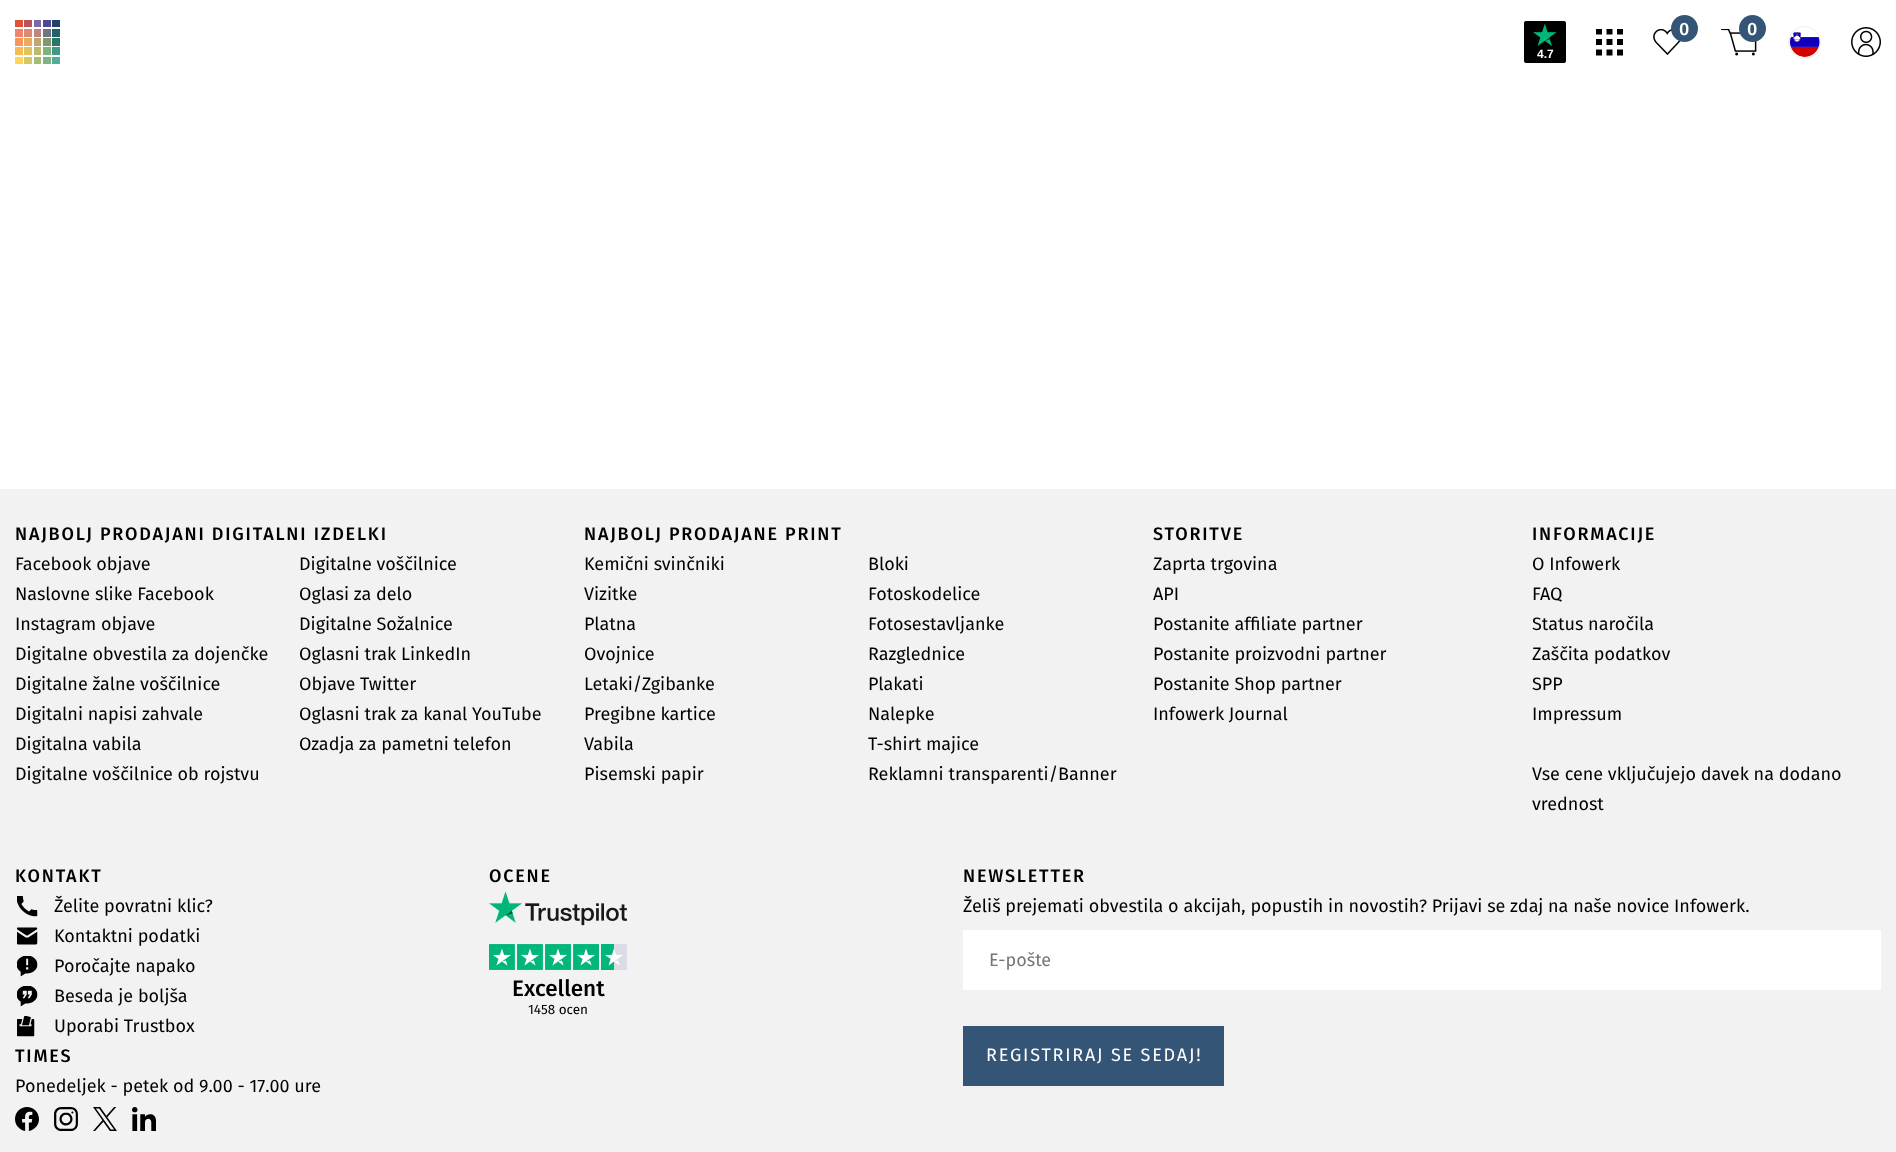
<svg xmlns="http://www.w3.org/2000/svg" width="1896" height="1152">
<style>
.a{font:bold 12px Liberation Sans;fill:#fff}
.b{font:500 18px Fira Sans;fill:#fff}
.c{font:500 18px Fira Sans;letter-spacing:1.8px;fill:#000}
.d{font:18px Fira Sans;fill:#000}
.e{font:500 22.5px Fira Sans;fill:#000}
.f{font:13.5px Fira Sans;fill:#000}
.g{font:18px Fira Sans;fill:#757575}
.h{font:18px Fira Sans;letter-spacing:1.8px;fill:#fff}
</style>
<rect width="100%" height="100%" fill="#fff"/>
<image href="1.png" x="15" y="20" width="45" height="44"/>
<image href="2.png" x="1524" y="21" width="42" height="42"/>
<image href="3.png" x="1596" y="29" width="27" height="27"/>
<image href="4.png" x="1653" y="29" width="28" height="26"/>
<circle fill="#355577" cx="1684.5" cy="28.5" r="13.5"/>
<image href="5.png" x="1721" y="29" width="36" height="27"/>
<circle fill="#355577" cx="1752.5" cy="28.5" r="13.5"/>
<circle fill="none" stroke="#f2f2f2" stroke-width="2" cx="1804.5" cy="42.5" r="15.5"/>
<image href="6.png" x="1790" y="27" width="30" height="30"/>
<image href="7.png" x="1851" y="27" width="30" height="30"/>
<path fill="#f2f2f2" d="M0 489h1896v663H0z"/>
<image href="8.png" x="17" y="896" width="21" height="21"/>
<image href="9.png" x="17" y="927" width="21" height="18"/>
<image href="10.png" x="17" y="956" width="21" height="21"/>
<image href="11.png" x="17" y="986" width="21" height="21"/>
<image href="12.png" x="17" y="1016" width="18" height="21"/>
<image href="13.png" x="15" y="1107" width="24" height="24"/>
<image href="14.png" x="54" y="1107" width="24" height="24"/>
<image href="15.png" x="93" y="1107" width="24" height="24"/>
<image href="16.png" x="132" y="1107" width="24" height="24"/>
<image href="17.png" x="489" y="891" width="138" height="35"/>
<image href="18.png" x="489" y="944" width="138" height="26"/>
<path fill="#fff" d="M963 930h918v60H963z"/>
<path fill="#355577" d="M963 1026h261v60H963z"/>
<text class="a" x="1537" y="58">4.7</text>
<text class="b" x="1679" y="35">0</text>
<text class="b" x="1747" y="35">0</text>
<text class="c" x="15" y="540">NAJBOLJ PRODAJANI DIGITALNI IZDELKI</text>
<text class="d" x="15" y="570">Facebook objave</text>
<text class="d" x="299" y="570">Digitalne voščilnice</text>
<text class="d" x="15" y="600">Naslovne slike Facebook</text>
<text class="d" x="299" y="600">Oglasi za delo</text>
<text class="d" x="15" y="630">Instagram objave</text>
<text class="d" x="299" y="630">Digitalne Sožalnice</text>
<text class="d" x="15" y="660">Digitalne obvestila za dojenčke</text>
<text class="d" x="299" y="660">Oglasni trak LinkedIn</text>
<text class="d" x="15" y="690">Digitalne žalne voščilnice</text>
<text class="d" x="299" y="690">Objave Twitter</text>
<text class="d" x="15" y="720">Digitalni napisi zahvale</text>
<text class="d" x="299" y="720">Oglasni trak za kanal YouTube</text>
<text class="d" x="15" y="750">Digitalna vabila</text>
<text class="d" x="299" y="750">Ozadja za pametni telefon</text>
<text class="d" x="15" y="780">Digitalne voščilnice ob rojstvu</text>
<text class="c" x="584" y="540">NAJBOLJ PRODAJANE PRINT</text>
<text class="d" x="584" y="570">Kemični svinčniki</text>
<text class="d" x="868" y="570">Bloki</text>
<text class="d" x="584" y="600">Vizitke</text>
<text class="d" x="868" y="600">Fotoskodelice</text>
<text class="d" x="584" y="630">Platna</text>
<text class="d" x="868" y="630">Fotosestavljanke</text>
<text class="d" x="584" y="660">Ovojnice</text>
<text class="d" x="868" y="660">Razglednice</text>
<text class="d" x="584" y="690">Letaki/Zgibanke</text>
<text class="d" x="868" y="690">Plakati</text>
<text class="d" x="584" y="720">Pregibne kartice</text>
<text class="d" x="868" y="720">Nalepke</text>
<text class="d" x="584" y="750">Vabila</text>
<text class="d" x="868" y="750">T-shirt majice</text>
<text class="d" x="584" y="780">Pisemski papir</text>
<text class="d" x="868" y="780">Reklamni transparenti/Banner</text>
<text class="c" x="1153" y="540">STORITVE</text>
<text class="d" x="1153" y="570">Zaprta trgovina</text>
<text class="d" x="1153" y="600">API</text>
<text class="d" x="1153" y="630">Postanite affiliate partner</text>
<text class="d" x="1153" y="660">Postanite proizvodni partner</text>
<text class="d" x="1153" y="690">Postanite Shop partner</text>
<text class="d" x="1153" y="720">Infowerk Journal</text>
<text class="c" x="1532" y="540">INFORMACIJE</text>
<text class="d" x="1532" y="570">O Infowerk</text>
<text class="d" x="1532" y="600">FAQ</text>
<text class="d" x="1532" y="630">Status naročila</text>
<text class="d" x="1532" y="660">Zaščita podatkov</text>
<text class="d" x="1532" y="690">SPP</text>
<text class="d" x="1532" y="720">Impressum</text>
<text class="d" x="1532" y="780">Vse cene vključujejo davek na dodano</text>
<text class="d" x="1532" y="810">vrednost</text>
<text class="c" x="15" y="882">KONTAKT</text>
<text class="d" x="54" y="912">Želite povratni klic?</text>
<text class="d" x="54" y="942">Kontaktni podatki</text>
<text class="d" x="54" y="972">Poročajte napako</text>
<text class="d" x="54" y="1002">Beseda je boljša</text>
<text class="d" x="54" y="1032">Uporabi Trustbox</text>
<text class="c" x="15" y="1062">TIMES</text>
<text class="d" x="15" y="1092">Ponedeljek - petek od 9.00 - 17.00 ure</text>
<text class="c" x="489" y="882">OCENE</text>
<text class="e" x="512" y="996">Excellent</text>
<text class="f" x="528" y="1014">1458 ocen</text>
<text class="c" x="963" y="882">NEWSLETTER</text>
<text class="d" x="963" y="912">Želiš prejemati obvestila o akcijah, popustih in novostih? Prijavi se zdaj na naše novice Infowerk.</text>
<text class="g" x="989" y="966">E-pošte</text>
<text class="h" x="986" y="1061">REGISTRIRAJ SE SEDAJ!</text>
</svg>
